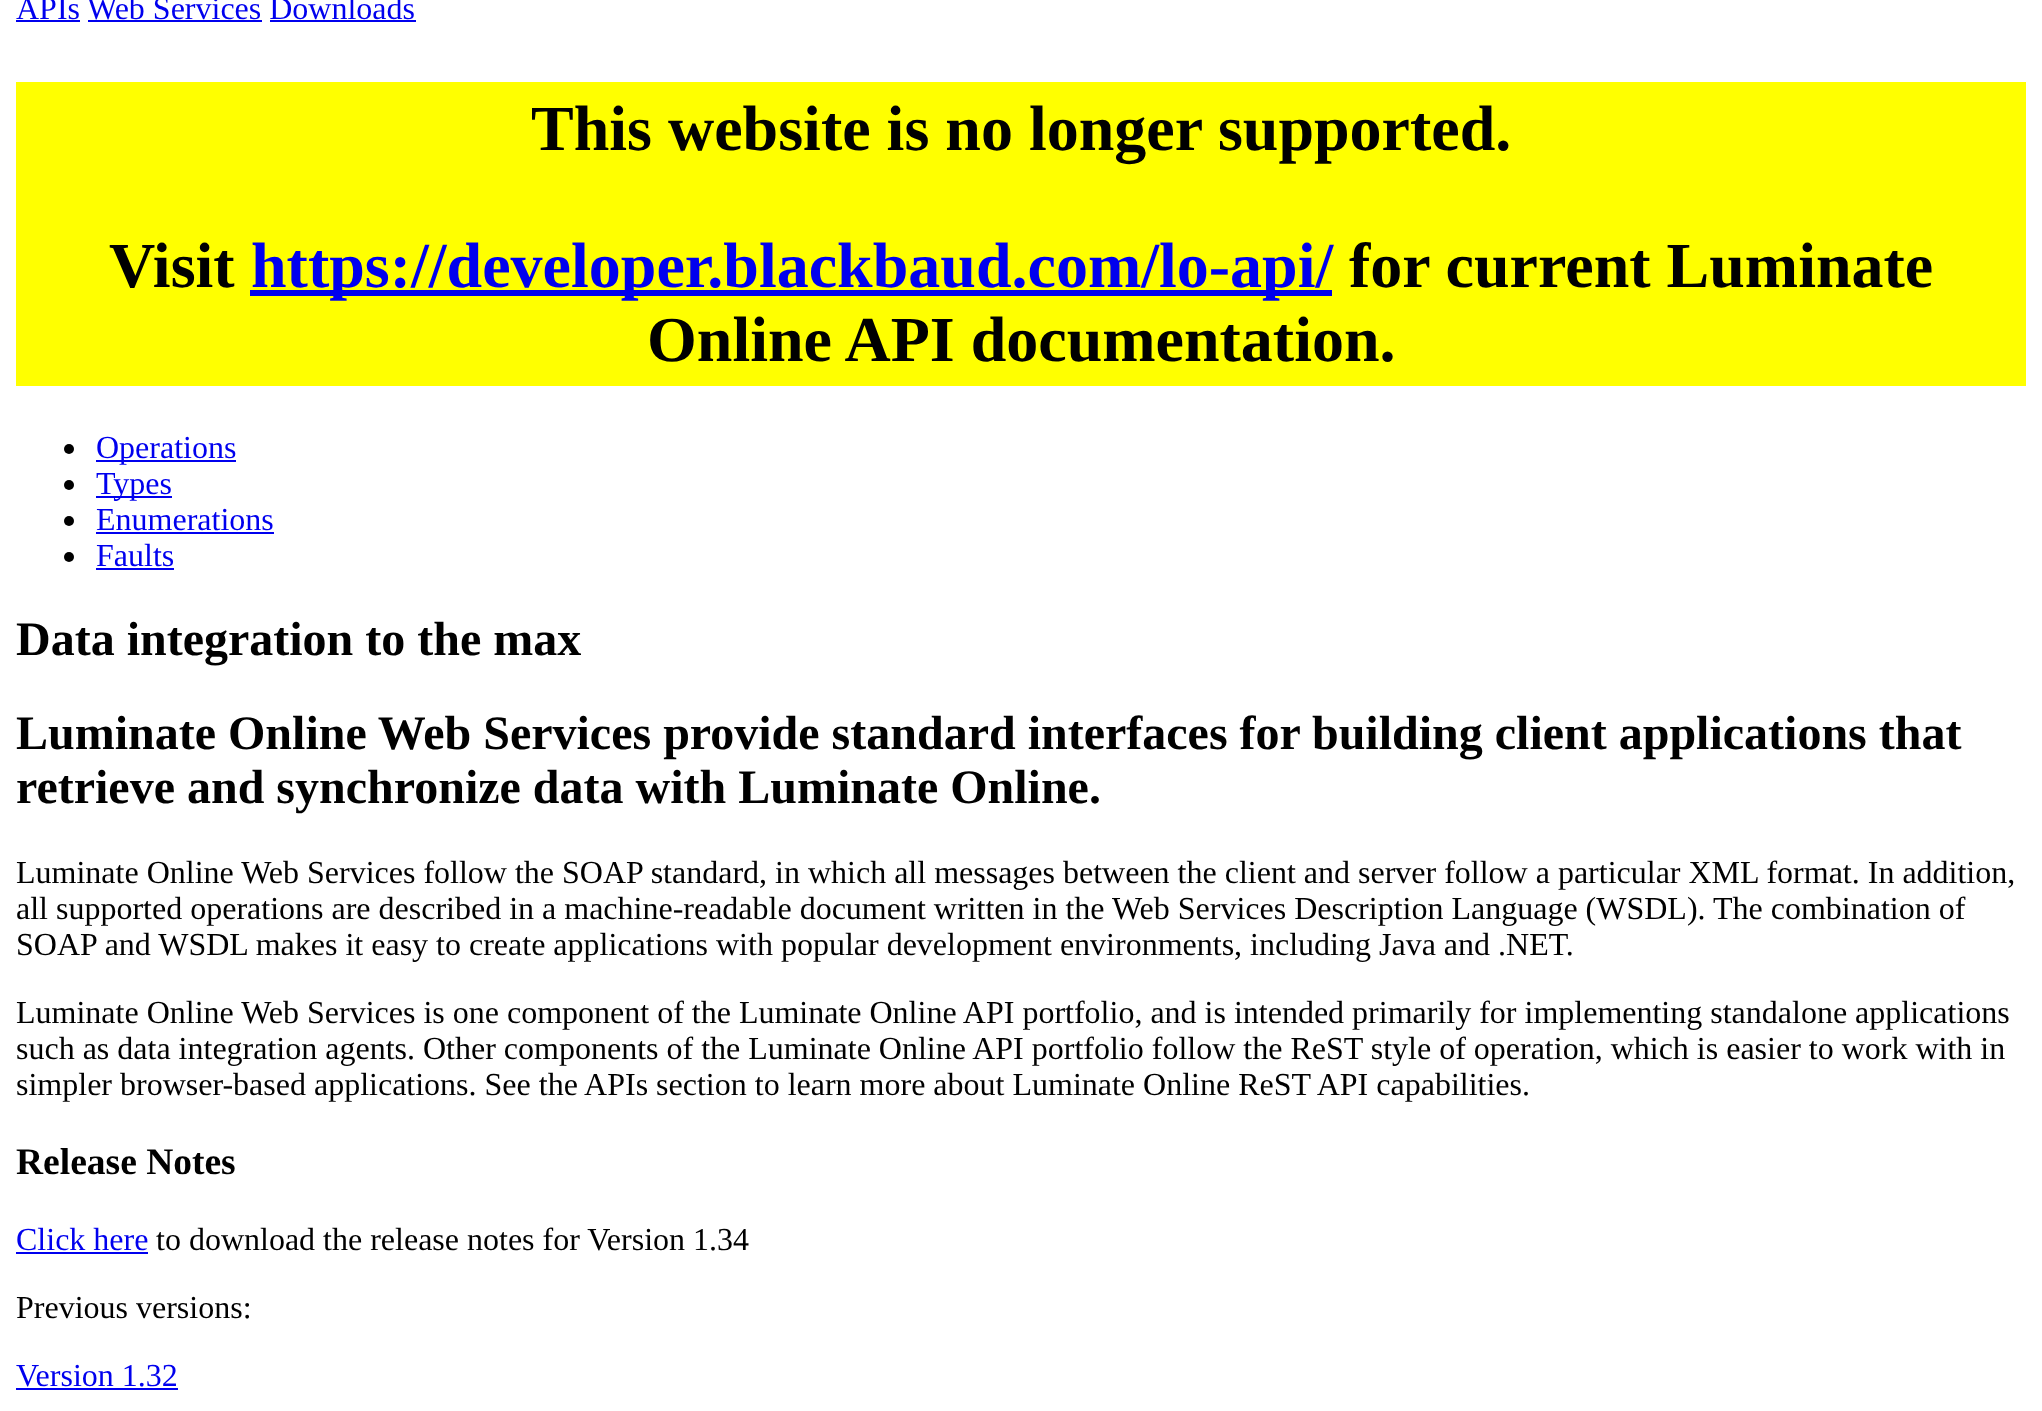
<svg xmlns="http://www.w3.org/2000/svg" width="2042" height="1411">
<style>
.a{font:32px Liberation Serif;fill:#00e}
.b{font:bold 64px Liberation Serif;fill:#000}
.c{font:bold 64px Liberation Serif;fill:#00e}
.d{font:bold 48px Liberation Serif;fill:#000}
.e{font:32px Liberation Serif;fill:#000}
.f{font:bold 37.5px Liberation Serif;fill:#000}
</style>
<rect width="100%" height="100%" fill="#fff"/>
<path fill="#00e" d="M16 20h64v2H16z"/>
<path fill="#00e" d="M88 20h174v2H88z"/>
<path fill="#00e" d="M270 20h146v2H270z"/>
<path fill="#ff0" d="M16 82h2010v304H16z"/>
<path fill="#00e" d="M250 290h1082v6H250z"/>
<circle fill="#000" cx="69" cy="449" r="5"/>
<path fill="#00e" d="M96 460h140v2H96z"/>
<circle fill="#000" cx="69" cy="485" r="5"/>
<path fill="#00e" d="M96 496h76v2H96z"/>
<circle fill="#000" cx="69" cy="521" r="5"/>
<path fill="#00e" d="M96 532h178v2H96z"/>
<circle fill="#000" cx="69" cy="557" r="5"/>
<path fill="#00e" d="M96 568h78v2H96z"/>
<path fill="#00e" d="M16 1252h132v2H16z"/>
<path fill="#00e" d="M16 1388h162v2H16z"/>
<text class="a" x="16" y="19">APIs</text>
<text class="a" x="87" y="19">Web Services Downloads</text>
<text class="b" x="531" y="150">This website is no longer supported.</text>
<text class="b" x="109" y="287">Visit</text>
<text class="c" x="251" y="287">https://developer.blackbaud.com/lo-api/</text>
<text class="b" x="1349" y="287">for current Luminate</text>
<text class="b" x="647" y="361">Online API documentation.</text>
<text class="a" x="96" y="458">Operations</text>
<text class="a" x="96" y="494">Types</text>
<text class="a" x="96" y="530">Enumerations</text>
<text class="a" x="96" y="566">Faults</text>
<text class="d" x="16" y="655">Data integration to the max</text>
<text class="d" x="16" y="749">Luminate Online Web Services provide standard interfaces for building client applications that</text>
<text class="d" x="16" y="803">retrieve and synchronize data with Luminate Online.</text>
<text class="e" x="16" y="883">Luminate Online Web Services follow the SOAP standard, in which all messages between the client and server follow a particular XML format. In addition,</text>
<text class="e" x="16" y="919">all supported operations are described in a machine-readable document written in the Web Services Description Language (WSDL). The combination of</text>
<text class="e" x="16" y="955">SOAP and WSDL makes it easy to create applications with popular development environments, including Java and .NET.</text>
<text class="e" x="16" y="1023">Luminate Online Web Services is one component of the Luminate Online API portfolio, and is intended primarily for implementing standalone applications</text>
<text class="e" x="16" y="1059">such as data integration agents. Other components of the Luminate Online API portfolio follow the ReST style of operation, which is easier to work with in</text>
<text class="e" x="16" y="1095">simpler browser-based applications. See the APIs section to learn more about Luminate Online ReST API capabilities.</text>
<text class="f" x="16" y="1174">Release Notes</text>
<text class="a" x="16" y="1250">Click here</text>
<text class="e" x="156" y="1250">to download the release notes for Version 1.34</text>
<text class="e" x="16" y="1318">Previous versions:</text>
<text class="a" x="16" y="1386">Version 1.32</text>
</svg>
